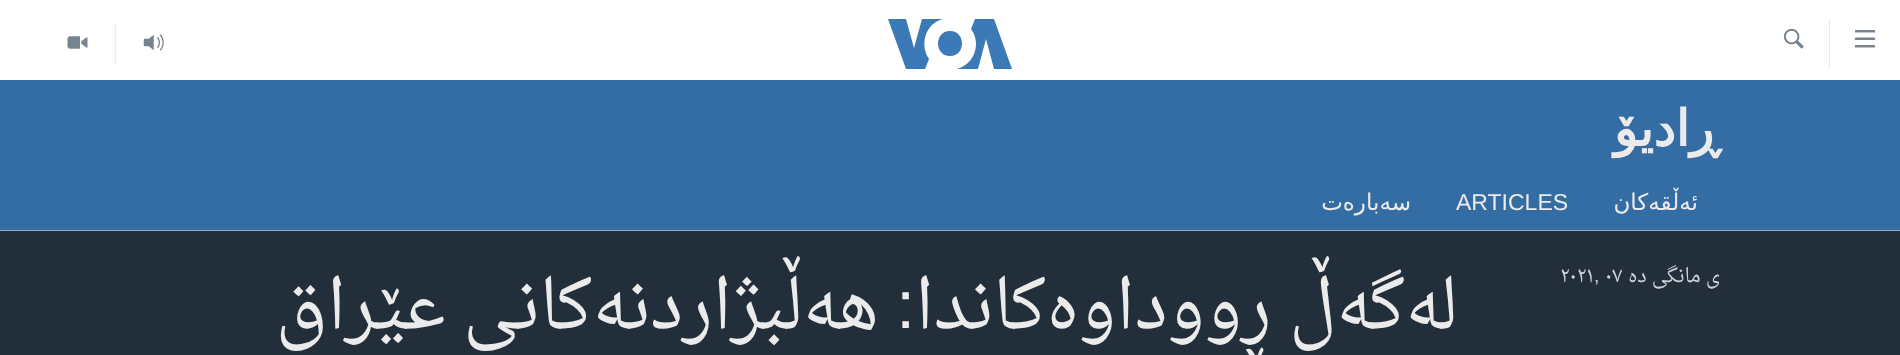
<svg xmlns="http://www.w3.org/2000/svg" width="1900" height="355">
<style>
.a{font:bold 50px DejaVu Sans;direction:rtl;fill:#ebebeb}
.b{font:23px DejaVu Sans;direction:rtl;fill:#ebebeb}
.c{font:23px Liberation Sans;fill:#ebebeb}
.d{font:19.5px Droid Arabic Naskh;direction:rtl;fill:#cbd1d6}
.e{font:19.5px Droid Arabic Naskh;fill:#cbd1d6}
.f{font:19.5px Liberation Sans;fill:#cbd1d6}
.g{font:67.5px Droid Arabic Naskh;direction:rtl;fill:#ebebeb}
.h{font:67.5px Liberation Sans;direction:rtl;fill:#ebebeb}
</style>
<rect width="100%" height="100%" fill="#fff"/>
<image href="1.png" x="1855" y="30" width="20" height="18"/>
<path fill="#ebebeb" d="M1829 19h1v49H1829z"/>
<image href="2.png" x="1783" y="28" width="21" height="21"/>
<path fill="#3b79b7" d="M929 59l-4 10h-19l-18-50h18l8 29l8-29h21c-17 4-24 25-14 40zm21-28c-16 0-16 25 0 25c16 0 16-25 0-25zm26 13c0 12-8 22-19 25h21l8-30l8 30h18l-18-50h-19l-4 10c3 4 5 9 5 15z"/>
<path fill="#ebebeb" d="M115 23h1v41H115z"/>
<image href="3.png" x="143" y="34" width="21" height="17"/>
<image href="4.png" x="67" y="36" width="21" height="13"/>
<path fill="#346ca4" d="M0 80h1900v150H0z"/>
<path fill="#222f3a" d="M0 231h1900v124H0z"/>
<path fill="#a1aab4" d="M0 230h1900v1H0z"/>
<text class="a" x="1720" y="146">ڕادیۆ</text>
<text class="b" x="1698" y="210">ئه‌ڵقه‌کان</text>
<text class="c" x="1456" y="210">ARTICLES</text>
<text class="b" x="1411" y="210">سه‌باره‌ت</text>
<text class="d" x="1720" y="282">ی مانگی ده</text>
<text class="e" x="1605" y="282">٠٧</text>
<text class="f" x="1594" y="282">,</text>
<text class="e" x="1560" y="282">٢٠٢١</text>
<text class="g" x="1458" y="328">لەگەڵ ڕووداوەکاندا</text>
<text class="h" x="915" y="328">:</text>
<text class="g" x="879" y="328">هەڵبژاردنەکانی عێراق</text>
</svg>
